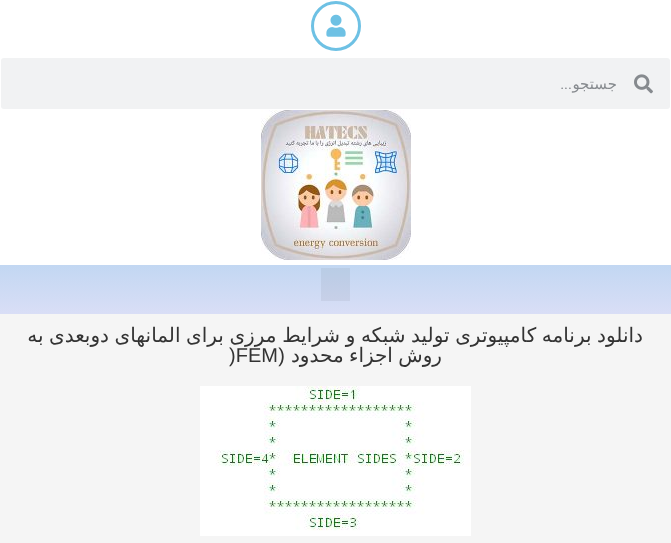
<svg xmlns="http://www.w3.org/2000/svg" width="671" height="543">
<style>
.a{font:15px Roboto;direction:rtl;fill:#868a8e}
.b{font:15px DejaVu Sans;direction:rtl;fill:#868a8e}
.c{font:20px DejaVu Sans;direction:rtl;fill:#333}
.d{font:20px Liberation Sans;direction:rtl;fill:#333}
.e{font:20px Liberation Sans;fill:#333}
</style>
<defs>
<linearGradient id="g1" gradientUnits="userSpaceOnUse" x1="336" y1="265" x2="336" y2="314"><stop offset="0" stop-color="#c2d7f2"/><stop offset="1" stop-color="#d9def6"/></linearGradient>
</defs>
<rect width="100%" height="100%" fill="#fff"/>
<circle fill="none" stroke="#6ec1e4" stroke-width="3" cx="336" cy="26" r="23.5"/>
<image href="1.png" x="326" y="14" width="20" height="23"/>
<rect fill="#f1f2f3" x="1" y="58" width="669" height="51" rx="3"/>
<image href="2.png" x="634" y="74" width="19" height="20"/>
<image href="3.png" x="261" y="110" width="150" height="150"/>
<path fill="url(#g1)" d="M0 265h671v49H0z"/>
<path fill="#0000000d" d="M321 268h29v33H321z"/>
<path fill="#f5f5f5" d="M0 314h671v229H0z"/>
<image href="4.png" x="200" y="386" width="271" height="150"/>
<text class="a" x="572" y="89">...</text>
<text class="b" x="617" y="89">جستجو</text>
<text class="c" x="643" y="342" word-spacing="-0.75">دانلود برنامه کامپیوتری تولید شبکه و شرایط مرزی برای المانهای دوبعدی به</text>
<text class="c" x="442" y="362" word-spacing="-1">روش اجزاء محدود</text>
<text class="d" x="285" y="362">(</text>
<text class="e" x="229" y="362">)FEM</text>
</svg>
